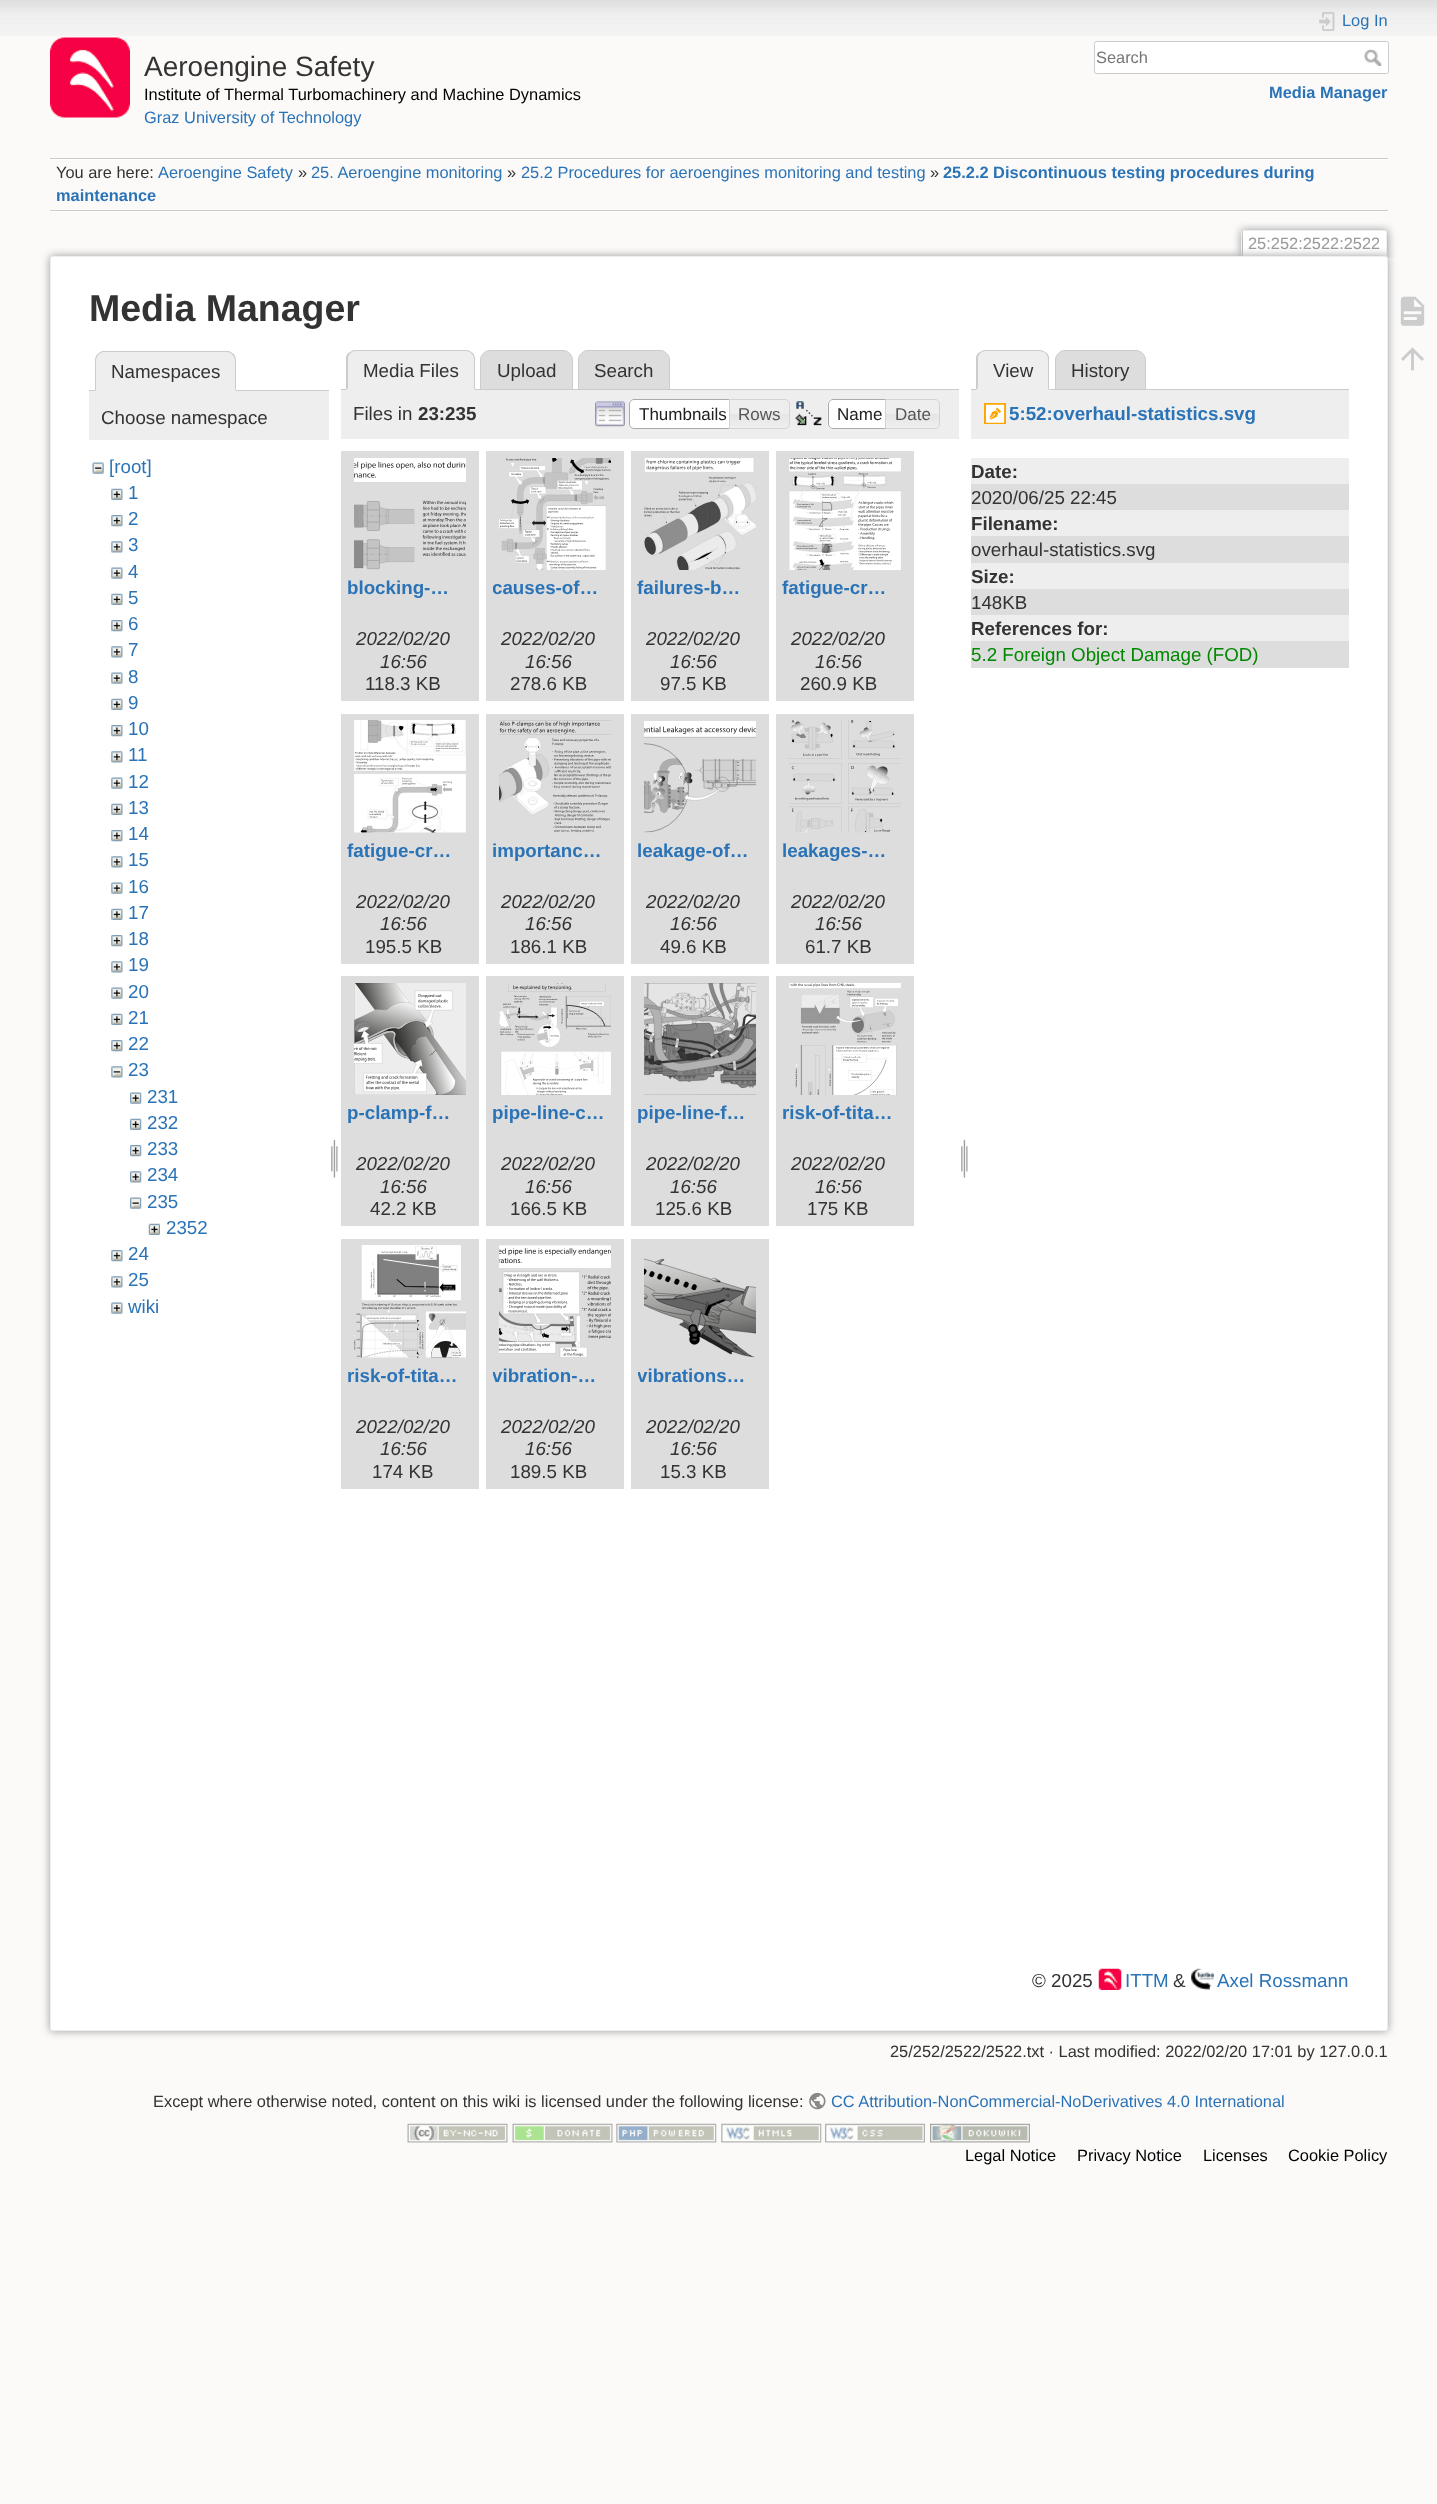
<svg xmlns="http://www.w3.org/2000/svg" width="1437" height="2504">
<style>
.a{font:28px Liberation Sans;fill:#333}
.b{font:16.4px Liberation Sans;fill:#000}
.c{font:16.4px Liberation Sans;fill:#2b73b7}
.d{font:16.4px Liberation Sans;fill:#757575}
.e{font:bold 16.4px Liberation Sans;fill:#2b73b7}
.f{font:16.4px Liberation Sans;fill:#333}
.g{font:16.4px Liberation Sans;fill:#999}
.h{font:bold 37.5px Liberation Sans;fill:#333}
.i{font:18.75px Liberation Sans;fill:#333}
.j{font:18.75px Liberation Sans;fill:#2b73b7}
.k{font:bold 18.75px Liberation Sans;fill:#333}
.l{font:17px Liberation Sans;fill:#212121}
.m{font:17px Liberation Sans;fill:#555}
.n{font:bold 18.75px Liberation Sans;fill:#2b73b7}
.o{font:italic 18.75px Liberation Sans;fill:#333}
.p{font:18.75px Liberation Sans;fill:#080}
</style>
<defs>
<clipPath id="clip1"><path d="M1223 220h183v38H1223z"/></clipPath>
<clipPath id="clip2"><path d="M493 570h112v35H493z"/></clipPath>
<clipPath id="clip3"><path d="M493 1358h112v35H493z"/></clipPath>
<clipPath id="clip4"><path d="M638 1358h112v35H638z"/></clipPath>
</defs>
<rect width="100%" height="100%" fill="#fbfaf9"/>
<image href="1.png" x="0" y="0" width="1437" height="36"/>
<image href="2.png" x="50" y="37" width="80" height="81"/>
<image href="3.png" x="1319" y="12" width="16" height="19"/>
<rect fill="#fff" stroke="#ccc" x="1094.5" y="41.5" width="294" height="32" rx="2"/>
<image href="4.png" x="1364" y="49" width="18" height="17"/>
<path fill="#ccc" d="M50 158h1338v1H50z"/>
<path fill="#fff" d="M50 211h1338v1H50z"/>
<path fill="#fff" d="M50 159h1338v1H50z"/>
<path fill="#ccc" d="M50 210h1338v1H50z"/>
<g clip-path="url(#clip1)">
<rect fill="#999" filter="blur(4px)" x="1241" y="230" width="147" height="28" rx="2.5"/>
</g>
<path fill="#fff" d="M1244 231h141c.5 0 1 .5 1 1v26h-143v-26c0-.5 .5-1 1-1z"/>
<path fill="#eee" d="M1243 230h143v1H1243z"/>
<path fill="#eee" d="M1386 231h1v27H1386z"/>
<path fill="#eee" d="M1241 231h1v27H1241z"/>
<rect fill="#999" filter="blur(4.5px)" x="50" y="256" width="1338" height="1775" rx="2.5"/>
<rect fill="#fff" stroke="#eee" x="50.5" y="256.5" width="1337" height="1774" rx="2"/>
<path fill="#ccc" d="M89 390h240v1H89z"/>
<path fill="#eee" d="M105 351h121c5.5 0 10 4.5 10 10v30h-141v-30c0-5.5 4.5-10 10-10z"/>
<path fill="#ccc" d="M104 352c-2 0-4 1-6 3v-1c1-1 2-2 4-3h127c2 1 3 2 5 3l-1 1c-2-2-4-3-6-3z"/>
<path fill="#ccc" d="M233.5 354c1.5 1.5 2.5 4 2.5 7v30l-1-1v-29c0-2.5-1-4.5-2.5-6z"/>
<path fill="#eee" d="M236 391l-1-1h-139l-1 1z"/>
<path fill="#ccc" d="M95 361v30l1-1v-29c0-2.5 1-4.5 2.5-6.5l-1-.5c-1.5 1.5-2.5 4-2.5 7z"/>
<path fill="#eee" d="M89 391h240v49H89z"/>
<image href="5.png" x="92" y="462" width="12" height="12"/>
<image href="6.png" x="111" y="488" width="12" height="12"/>
<image href="7.png" x="111" y="515" width="12" height="12"/>
<image href="8.png" x="111" y="541" width="12" height="12"/>
<image href="9.png" x="111" y="567" width="12" height="12"/>
<image href="6.png" x="111" y="593" width="12" height="12"/>
<image href="7.png" x="111" y="620" width="12" height="12"/>
<image href="8.png" x="111" y="646" width="12" height="12"/>
<image href="9.png" x="111" y="672" width="12" height="12"/>
<image href="6.png" x="111" y="698" width="12" height="12"/>
<image href="7.png" x="111" y="725" width="12" height="12"/>
<image href="8.png" x="111" y="751" width="12" height="12"/>
<image href="10.png" x="111" y="777" width="12" height="12"/>
<image href="6.png" x="111" y="803" width="12" height="12"/>
<image href="7.png" x="111" y="830" width="12" height="12"/>
<image href="8.png" x="111" y="856" width="12" height="12"/>
<image href="9.png" x="111" y="882" width="12" height="12"/>
<image href="6.png" x="111" y="908" width="12" height="12"/>
<image href="7.png" x="111" y="935" width="12" height="12"/>
<image href="8.png" x="111" y="961" width="12" height="12"/>
<image href="9.png" x="111" y="987" width="12" height="12"/>
<image href="6.png" x="111" y="1013" width="12" height="12"/>
<image href="7.png" x="111" y="1040" width="12" height="12"/>
<image href="11.png" x="111" y="1066" width="12" height="12"/>
<image href="12.png" x="130" y="1092" width="12" height="12"/>
<image href="13.png" x="130" y="1118" width="12" height="12"/>
<image href="14.png" x="130" y="1145" width="12" height="12"/>
<image href="15.png" x="130" y="1171" width="12" height="12"/>
<image href="16.png" x="130" y="1197" width="12" height="12"/>
<image href="17.png" x="148" y="1223" width="12" height="12"/>
<image href="7.png" x="111" y="1250" width="12" height="12"/>
<image href="8.png" x="111" y="1276" width="12" height="12"/>
<image href="9.png" x="111" y="1302" width="12" height="12"/>
<image href="18.png" x="331" y="1139" width="7" height="39"/>
<path fill="#ddd" stroke="#ccc" d="M490 350.5h73c5 0 9.5 4.5 9.5 9.5v29.5h-92v-29.5c0-5 4.5-9.5 9.5-9.5z"/>
<path fill="#ddd" stroke="#ccc" d="M588 350.5h72c5 0 9.5 4.5 9.5 9.5v29.5h-91v-29.5c0-5 4.5-9.5 9.5-9.5z"/>
<path fill="#ccc" d="M341 389h618v1H341z"/>
<path fill="#eee" d="M356 350h109c5.5 0 10 4.5 10 10v30h-129v-30c0-5.5 4.5-10 10-10z"/>
<path fill="#ccc" d="M356 350c-3 0-5 1-7 3l1 1c1-2 3-3 6-3h110c2 0 4 1 6 3v-1c-1-2-4-3-6-3z"/>
<path fill="#ccc" d="M475 390v-31c0-2.5-1-5-2.5-6.5l-1 1c1.5 1.5 2.5 3.5 2.5 5.5v30z"/>
<path fill="#eee" d="M475 390l-1-1h-126v-1l-2 2z"/>
<path fill="#ccc" d="M346 390v-33c.5-2 1.5-3.5 3-4.5l1 1c-1.5 1.5-2 3.5-2 5.5v29z"/>
<path fill="#eee" d="M341 390h618v49H341z"/>
<image href="19.png" x="595" y="401" width="30" height="26"/>
<path fill="#fff" d="M634 399h101v30h-101c-3 0-5-2-5-5v-20c0-3 2-5 5-5z"/>
<image href="20.png" x="629" y="399" width="4" height="29"/>
<path fill="none" stroke="#aaa" d="M634 399.5h100.5v29h-100.5c-2.5 0-4.5-2-4.5-4.5v-20c0-2.5 2-4.5 4.5-4.5z"/>
<image href="21.png" x="728" y="399" width="62" height="30"/>
<path fill="none" stroke="#d3d3d3" d="M729.5 399.5h55.5c2.5 0 4.5 2 4.5 4.5v20c0 2.5-2 4.5-4.5 4.5h-55.5z"/>
<image href="22.png" x="795" y="401" width="27" height="25"/>
<path fill="#fff" d="M833 399h58v30h-58c-3 0-5-2-5-5v-20c0-3 2-5 5-5z"/>
<image href="23.png" x="827" y="399" width="5" height="29"/>
<path fill="none" stroke="#aaa" d="M833 399.5h57.5v29h-57.5c-2.5 0-4.5-2-4.5-4.5v-20c0-2.5 2-4.5 4.5-4.5z"/>
<image href="24.png" x="886" y="399" width="54" height="30"/>
<path fill="none" stroke="#d3d3d3" d="M885.5 399.5h49.5c2.5 0 4.5 2 4.5 4.5v20c0 2.5-2 4.5-4.5 4.5h-49.5z"/>
<path fill="#ddd" d="M341 451h138v250H341z"/>
<image href="25.png" x="354" y="458" width="112" height="112"/>
<path fill="#ddd" d="M486 451h138v250H486z"/>
<image href="26.png" x="499" y="458" width="112" height="112"/>
<path fill="#ddd" d="M631 451h138v250H631z"/>
<image href="27.png" x="644" y="458" width="112" height="112"/>
<path fill="#ddd" d="M776 451h138v250H776z"/>
<image href="28.png" x="789" y="458" width="112" height="112"/>
<path fill="#ddd" d="M341 714h138v250H341z"/>
<image href="29.png" x="354" y="720" width="112" height="113"/>
<path fill="#ddd" d="M486 714h138v250H486z"/>
<image href="30.png" x="499" y="720" width="112" height="113"/>
<path fill="#ddd" d="M631 714h138v250H631z"/>
<image href="31.png" x="644" y="721" width="112" height="112"/>
<path fill="#ddd" d="M776 714h138v250H776z"/>
<image href="32.png" x="789" y="720" width="112" height="113"/>
<path fill="#ddd" d="M341 976h138v250H341z"/>
<image href="33.png" x="354" y="983" width="112" height="112"/>
<path fill="#ddd" d="M486 976h138v250H486z"/>
<image href="34.png" x="499" y="983" width="112" height="112"/>
<path fill="#ddd" d="M631 976h138v250H631z"/>
<image href="35.png" x="644" y="983" width="112" height="112"/>
<path fill="#ddd" d="M776 976h138v250H776z"/>
<image href="36.png" x="789" y="983" width="112" height="112"/>
<path fill="#ddd" d="M341 1239h138v250H341z"/>
<image href="37.png" x="354" y="1245" width="112" height="113"/>
<path fill="#ddd" d="M486 1239h138v250H486z"/>
<image href="38.png" x="499" y="1245" width="112" height="112"/>
<path fill="#ddd" d="M631 1239h138v250H631z"/>
<image href="39.png" x="644" y="1258" width="112" height="100"/>
<image href="18.png" x="961" y="1139" width="7" height="39"/>
<path fill="#ddd" stroke="#ccc" d="M1065 350.5h71c5 0 9.5 4.5 9.5 9.5v29.5h-90v-29.5c0-5 4.5-9.5 9.5-9.5z"/>
<path fill="#ccc" d="M971 389h378v1H971z"/>
<path fill="#eee" d="M986 350h53c5.5 0 10 4.5 10 10v30h-73v-30c0-5.5 4.5-10 10-10z"/>
<path fill="#ccc" d="M986 350c-3 0-5 1-7 3l1 1c1-2 3-3 6-3h53c2 0 5 1 6 2h1c-2-2-4-3-7-3z"/>
<path fill="#ccc" d="M1049 357v33l-1-1v-30c0-2-1-4-2.5-5.5l.5-1c1.5 1 2.5 2.5 3 4.5z"/>
<path fill="#eee" d="M1049 390l-1-1h-70v-1l-2 2z"/>
<path fill="#ccc" d="M976 390v-33c.5-2 1.5-3.5 3-4.5l1 1c-1.5 1.5-2 3.5-2 5.5v29z"/>
<path fill="#eee" d="M971 390h378v49H971z"/>
<image href="40.png" x="984" y="403" width="22" height="21"/>
<path fill="#eee" d="M971 458h378v26H971z"/>
<path fill="#ddd" d="M971 484h378v26H971z"/>
<path fill="#eee" d="M971 510h378v26H971z"/>
<path fill="#ddd" d="M971 536h378v27H971z"/>
<path fill="#eee" d="M971 563h378v26H971z"/>
<path fill="#ddd" d="M971 589h378v26H971z"/>
<path fill="#eee" d="M971 615h378v26H971z"/>
<path fill="#ddd" d="M971 641h378v27H971z"/>
<image href="41.png" x="1098" y="1968" width="24" height="22"/>
<image href="42.png" x="1191" y="1968" width="23" height="22"/>
<image href="43.png" x="1400" y="296" width="25" height="30"/>
<image href="44.png" x="1401" y="347" width="23" height="24"/>
<image href="45.png" x="809" y="2092" width="17" height="18"/>
<image href="46.png" x="407" y="2123" width="101" height="20"/>
<image href="47.png" x="512" y="2123" width="101" height="20"/>
<image href="48.png" x="616" y="2123" width="101" height="20"/>
<image href="49.png" x="721" y="2123" width="101" height="20"/>
<image href="50.png" x="825" y="2123" width="100" height="20"/>
<image href="51.png" x="930" y="2123" width="100" height="20"/>
<text class="a" x="144" y="76">Aeroengine Safety</text>
<text class="b" x="144" y="100">Institute of Thermal Turbomachinery and Machine Dynamics</text>
<text class="c" x="144" y="123">Graz University of Technology</text>
<text class="c" x="1342" y="26">Log In</text>
<text class="d" x="1096" y="63">Search</text>
<text class="e" x="1269" y="98">Media Manager</text>
<text class="f" x="56" y="178">You are here:</text>
<text class="c" x="158" y="178">Aeroengine Safety</text>
<text class="f" x="298" y="178">»</text>
<text class="c" x="311" y="178">25. Aeroengine monitoring</text>
<text class="f" x="507" y="178">»</text>
<text class="c" x="521" y="178">25.2 Procedures for aeroengines monitoring and testing</text>
<text class="f" x="930" y="178">»</text>
<text class="e" x="943" y="178">25.2.2 Discontinuous testing procedures during</text>
<text class="e" x="56" y="201">maintenance</text>
<text class="g" x="1248" y="249">25:252:2522:2522</text>
<text class="h" x="89" y="321">Media Manager</text>
<text class="i" x="111" y="378">Namespaces</text>
<text class="i" x="101" y="424">Choose namespace</text>
<text class="j" x="109" y="473">[root]</text>
<text class="j" x="128" y="499">1</text>
<text class="j" x="128" y="525">2</text>
<text class="j" x="128" y="551">3</text>
<text class="j" x="128" y="578">4</text>
<text class="j" x="128" y="604">5</text>
<text class="j" x="128" y="630">6</text>
<text class="j" x="128" y="656">7</text>
<text class="j" x="128" y="683">8</text>
<text class="j" x="128" y="709">9</text>
<text class="j" x="128" y="735">10</text>
<text class="j" x="128" y="761">11</text>
<text class="j" x="128" y="788">12</text>
<text class="j" x="128" y="814">13</text>
<text class="j" x="128" y="840">14</text>
<text class="j" x="128" y="866">15</text>
<text class="j" x="128" y="893">16</text>
<text class="j" x="128" y="919">17</text>
<text class="j" x="128" y="945">18</text>
<text class="j" x="128" y="971">19</text>
<text class="j" x="128" y="998">20</text>
<text class="j" x="128" y="1024">21</text>
<text class="j" x="128" y="1050">22</text>
<text class="j" x="128" y="1076">23</text>
<text class="j" x="147" y="1103">231</text>
<text class="j" x="147" y="1129">232</text>
<text class="j" x="147" y="1155">233</text>
<text class="j" x="147" y="1181">234</text>
<text class="j" x="147" y="1208">235</text>
<text class="j" x="166" y="1234">2352</text>
<text class="j" x="128" y="1260">24</text>
<text class="j" x="128" y="1286">25</text>
<text class="j" x="128" y="1313">wiki</text>
<text class="i" x="363" y="377">Media Files</text>
<text class="i" x="497" y="377">Upload</text>
<text class="i" x="594" y="377">Search</text>
<text class="i" x="353" y="420">Files in</text>
<text class="k" x="418" y="420">23:235</text>
<text class="l" x="639" y="420">Thumbnails</text>
<text class="m" x="738" y="420">Rows</text>
<text class="l" x="837" y="420">Name</text>
<text class="m" x="895" y="420">Date</text>
<text class="n" x="347" y="594">blocking-…</text>
<text class="o" x="356" y="645">2022/02/20</text>
<text class="o" x="380" y="668">16:56</text>
<text class="i" x="365" y="690">118.3 KB</text>
<g clip-path="url(#clip2)">
<text class="n" x="492" y="594">causes-of…</text>
</g>
<text class="o" x="501" y="645">2022/02/20</text>
<text class="o" x="525" y="668">16:56</text>
<text class="i" x="510" y="690">278.6 KB</text>
<text class="n" x="637" y="594">failures-b…</text>
<text class="o" x="646" y="645">2022/02/20</text>
<text class="o" x="670" y="668">16:56</text>
<text class="i" x="660" y="690">97.5 KB</text>
<text class="n" x="782" y="594">fatigue-cr…</text>
<text class="o" x="791" y="645">2022/02/20</text>
<text class="o" x="815" y="668">16:56</text>
<text class="i" x="800" y="690">260.9 KB</text>
<text class="n" x="347" y="857">fatigue-cr…</text>
<text class="o" x="356" y="908">2022/02/20</text>
<text class="o" x="380" y="930">16:56</text>
<text class="i" x="365" y="953">195.5 KB</text>
<text class="n" x="492" y="857">importanc…</text>
<text class="o" x="501" y="908">2022/02/20</text>
<text class="o" x="525" y="930">16:56</text>
<text class="i" x="510" y="953">186.1 KB</text>
<text class="n" x="637" y="857">leakage-of…</text>
<text class="o" x="646" y="908">2022/02/20</text>
<text class="o" x="670" y="930">16:56</text>
<text class="i" x="660" y="953">49.6 KB</text>
<text class="n" x="782" y="857">leakages-…</text>
<text class="o" x="791" y="908">2022/02/20</text>
<text class="o" x="815" y="930">16:56</text>
<text class="i" x="805" y="953">61.7 KB</text>
<text class="n" x="347" y="1119">p-clamp-f…</text>
<text class="o" x="356" y="1170">2022/02/20</text>
<text class="o" x="380" y="1193">16:56</text>
<text class="i" x="370" y="1215">42.2 KB</text>
<text class="n" x="492" y="1119">pipe-line-c…</text>
<text class="o" x="501" y="1170">2022/02/20</text>
<text class="o" x="525" y="1193">16:56</text>
<text class="i" x="510" y="1215">166.5 KB</text>
<text class="n" x="637" y="1119">pipe-line-f…</text>
<text class="o" x="646" y="1170">2022/02/20</text>
<text class="o" x="670" y="1193">16:56</text>
<text class="i" x="655" y="1215">125.6 KB</text>
<text class="n" x="782" y="1119">risk-of-tita…</text>
<text class="o" x="791" y="1170">2022/02/20</text>
<text class="o" x="815" y="1193">16:56</text>
<text class="i" x="807" y="1215">175 KB</text>
<text class="n" x="347" y="1382">risk-of-tita…</text>
<text class="o" x="356" y="1433">2022/02/20</text>
<text class="o" x="380" y="1455">16:56</text>
<text class="i" x="372" y="1478">174 KB</text>
<g clip-path="url(#clip3)">
<text class="n" x="492" y="1382">vibration-…</text>
</g>
<text class="o" x="501" y="1433">2022/02/20</text>
<text class="o" x="525" y="1455">16:56</text>
<text class="i" x="510" y="1478">189.5 KB</text>
<g clip-path="url(#clip4)">
<text class="n" x="637" y="1382">vibrations…</text>
</g>
<text class="o" x="646" y="1433">2022/02/20</text>
<text class="o" x="670" y="1455">16:56</text>
<text class="i" x="660" y="1478">15.3 KB</text>
<text class="i" x="993" y="377">View</text>
<text class="i" x="1071" y="377">History</text>
<text class="n" x="1009" y="420">5:52:overhaul-statistics.svg</text>
<text class="k" x="971" y="478">Date:</text>
<text class="i" x="971" y="504">2020/06/25 22:45</text>
<text class="k" x="971" y="530">Filename:</text>
<text class="i" x="971" y="556">overhaul-statistics.svg</text>
<text class="k" x="971" y="583">Size:</text>
<text class="i" x="971" y="609">148KB</text>
<text class="k" x="971" y="635">References for:</text>
<text class="p" x="971" y="661">5.2 Foreign Object Damage (FOD)</text>
<text class="i" x="1032" y="1987">© 2025</text>
<text class="j" x="1125" y="1987">ITTM</text>
<text class="i" x="1173" y="1987">&amp;</text>
<text class="j" x="1217" y="1987">Axel Rossmann</text>
<text class="f" x="890" y="2057">25/252/2522/2522.txt · Last modified: 2022/02/20 17:01 by 127.0.0.1</text>
<text class="f" x="153" y="2107">Except where otherwise noted, content on this wiki is licensed under the following license:</text>
<text class="c" x="831" y="2107">CC Attribution-NonCommercial-NoDerivatives 4.0 International</text>
<text class="b" x="965" y="2161">Legal Notice</text>
<text class="b" x="1077" y="2161">Privacy Notice</text>
<text class="b" x="1203" y="2161">Licenses</text>
<text class="b" x="1288" y="2161">Cookie Policy</text>
</svg>
